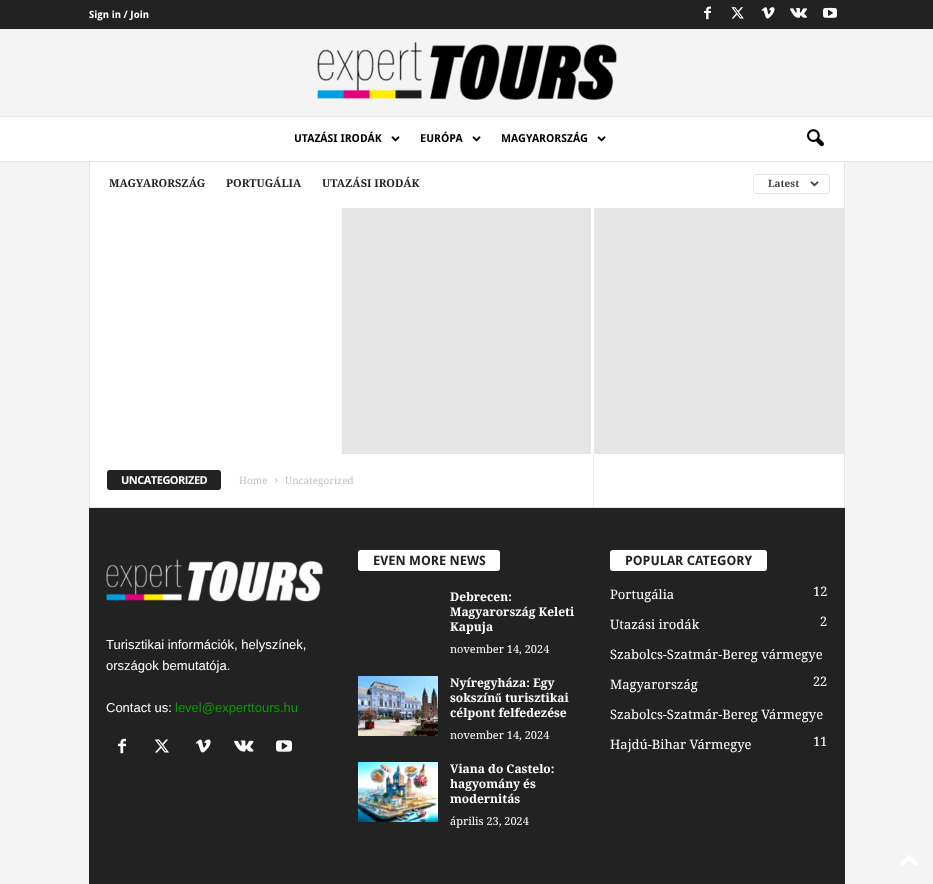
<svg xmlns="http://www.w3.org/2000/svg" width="933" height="884">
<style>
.a{font:bold 10px Droid Sans;fill:#fff}
.b{font:bold 11px Droid Sans;fill:#000}
.c{font:bold 11px Droid Serif;fill:#222}
.d{font:bold 10px Droid Serif;fill:#444}
.e{font:bold 11px Open Sans;letter-spacing:-0.5px;fill:#fff}
.f{font:10px Droid Serif;fill:#c3c3c3}
.g{font:13px Liberation Sans;fill:#fff}
.h{font:13px Liberation Sans;fill:#0a9e01}
.i{font:bold 13px Droid Sans;fill:#222}
.j{font:bold 12px Droid Serif;fill:#fff}
.k{font:11px Droid Serif;fill:#fff}
.l{font:bold 12px Liberation Serif;fill:#fff}
.m{font:13px Droid Serif;fill:#fff}
</style>
<rect width="100%" height="100%" fill="#f4f4f4"/>
<path fill="#222" d="M0 0h933v29H0z"/>
<image href="1.png" x="704" y="6" width="7" height="14"/>
<image href="2.png" x="731" y="7" width="13" height="12"/>
<image href="3.png" x="761" y="7" width="14" height="12"/>
<image href="4.png" x="790" y="8" width="17" height="10"/>
<image href="5.png" x="823" y="7" width="14" height="11"/>
<image href="6.png" x="317" y="42" width="300" height="58"/>
<path fill="#e6e6e6" d="M844 160h1v48H844z"/>
<path fill="#e6e6e6" d="M89 160h1v347H89z"/>
<path fill="#fff" d="M0 117h933v44H0z"/>
<path fill="#e6e6e6" d="M0 116h933v1H0z"/>
<path fill="#e6e6e6" d="M0 161h933v1H0z"/>
<image href="7.png" x="391" y="136" width="9" height="6"/>
<image href="7.png" x="472" y="136" width="9" height="6"/>
<image href="7.png" x="597" y="136" width="9" height="6"/>
<image href="8.png" x="807" y="129" width="17" height="18"/>
<path fill="#fff" d="M90 162h754v345H90z"/>
<rect fill="none" stroke="#e6e6e6" x="753.5" y="174.5" width="76" height="19" rx="2.5"/>
<image href="9.png" x="810" y="181" width="9" height="6"/>
<path fill="#e6e6e6" d="M89 507h756v1H89z"/>
<path fill="#e5e5e5" d="M342 208h249v246H342z"/>
<path fill="#e5e5e5" d="M594 208h251v246H594z"/>
<rect fill="#222" x="107" y="470" width="114" height="20" rx="3"/>
<image href="10.png" x="275" y="478" width="3" height="5"/>
<path fill="#e6e6e6" d="M593 454h1v53H593z"/>
<path fill="#e6e6e6" d="M844 454h1v53H844z"/>
<path fill="#222" d="M89 508h756v376H89z"/>
<image href="11.png" x="106" y="559" width="217" height="43"/>
<image href="12.png" x="118" y="738" width="8" height="16"/>
<image href="13.png" x="154" y="739" width="15" height="14"/>
<image href="14.png" x="195" y="739" width="16" height="14"/>
<image href="15.png" x="234" y="740" width="20" height="12"/>
<image href="16.png" x="276" y="740" width="16" height="12"/>
<rect fill="#fff" x="358" y="550" width="142" height="21" rx="3"/>
<image href="17.png" x="358" y="676" width="80" height="60"/>
<image href="18.png" x="358" y="762" width="80" height="60"/>
<rect fill="#fff" x="610" y="550" width="157" height="21" rx="3"/>
<image href="19.png" x="900" y="855" width="18" height="11"/>
<text class="a" x="89" y="18">Sign in / Join</text>
<text class="b" x="294" y="142">UTAZÁSI IRODÁK</text>
<text class="b" x="420" y="142">EURÓPA</text>
<text class="b" x="501" y="142">MAGYARORSZÁG</text>
<text class="c" x="109" y="187">MAGYARORSZÁG</text>
<text class="c" x="226" y="187">PORTUGÁLIA</text>
<text class="c" x="322" y="187">UTAZÁSI IRODÁK</text>
<text class="d" x="768" y="187">Latest</text>
<text class="e" x="121" y="484">UNCATEGORIZED</text>
<text class="f" x="239" y="484">Home</text>
<text class="f" x="285" y="484">Uncategorized</text>
<text class="g" x="106" y="649">Turisztikai információk, helyszínek,</text>
<text class="g" x="106" y="670">országok bemutatója.</text>
<text class="g" x="106" y="712">Contact us:</text>
<text class="h" x="175" y="712">level@experttours.hu</text>
<text class="i" x="373" y="565">EVEN MORE NEWS</text>
<text class="j" x="450" y="601">Debrecen:</text>
<text class="j" x="450" y="616">Magyarország Keleti</text>
<text class="j" x="450" y="631">Kapuja</text>
<text class="k" x="450" y="653">november 14, 2024</text>
<text class="j" x="450" y="687">Nyíregyháza: Egy</text>
<text class="j" x="450" y="702">sokszín</text>
<text class="l" x="495" y="702">ű</text>
<text class="j" x="505" y="702">turisztikai</text>
<text class="j" x="450" y="717">célpont felfedezése</text>
<text class="k" x="450" y="739">november 14, 2024</text>
<text class="j" x="450" y="773">Viana do Castelo:</text>
<text class="j" x="450" y="788">hagyomány és</text>
<text class="j" x="450" y="803">modernitás</text>
<text class="k" x="450" y="825">április 23, 2024</text>
<text class="i" x="625" y="565">POPULAR CATEGORY</text>
<text class="m" x="610" y="599">Portugália</text>
<text class="m" x="813" y="596">12</text>
<text class="m" x="610" y="629">Utazási irodák</text>
<text class="m" x="820" y="626">2</text>
<text class="m" x="610" y="659">Szabolcs-Szatmár-Bereg vármegye</text>
<text class="m" x="820" y="686">2</text>
<text class="m" x="610" y="689">Magyarország</text>
<text class="m" x="813" y="686">2</text>
<text class="m" x="610" y="719">Szabolcs-Szatmár-Bereg Vármegye</text>
<text class="m" x="820" y="746">1</text>
<text class="m" x="610" y="749">Hajdú-Bihar Vármegye</text>
<text class="m" x="813" y="746">1</text>
</svg>
